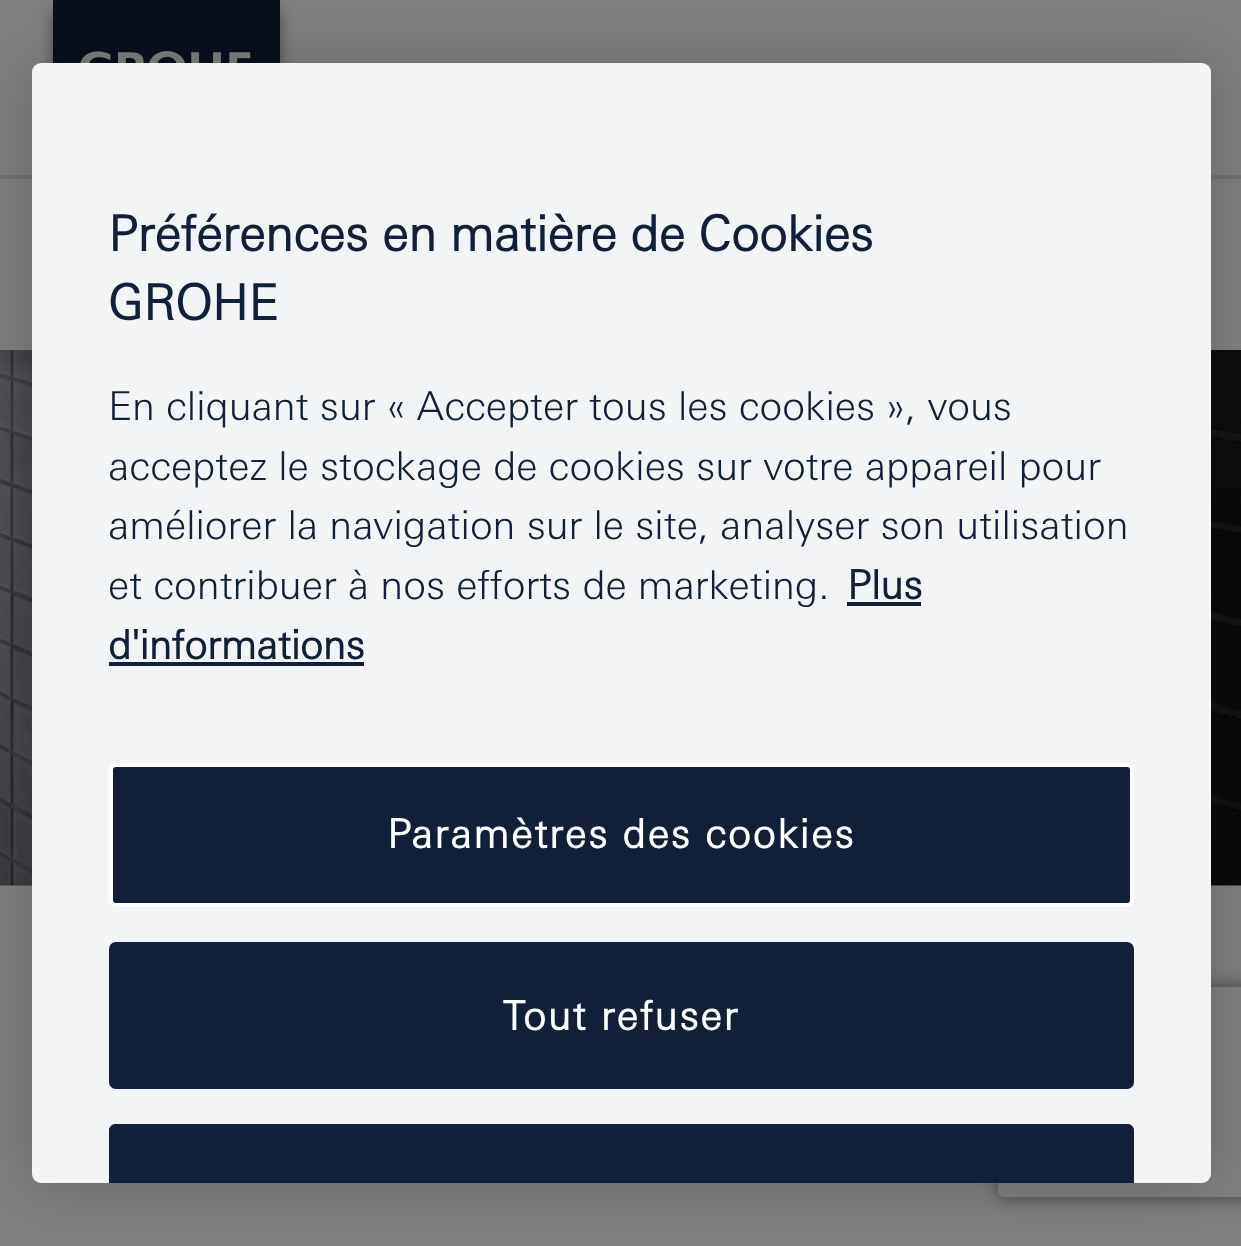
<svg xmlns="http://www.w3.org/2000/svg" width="1241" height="1246">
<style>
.a{font:bold 49px 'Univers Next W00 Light';fill:#112038}
.b{font:300 39.85px 'Univers Next W00 Light';fill:#112038}
.c{font:bold 39.85px 'Univers Next W00 Light';fill:#112038}
.d{font:bold 39.85px 'Univers Next W00 Light';letter-spacing:2px;fill:#fff}
</style>
<defs>
<clipPath id="clip1"><path d="M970 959h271v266h-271zm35 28h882c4 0 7 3 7 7v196c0 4-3 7-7 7h-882c-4 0-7-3-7-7v-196c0-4 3-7 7-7z" clip-rule="evenodd"/></clipPath>
</defs>
<rect width="100%" height="100%" fill="#808080"/>
<image href="2.png" x="0" y="350" width="1241" height="536"/>
<path fill="#0000001a" filter="blur(9px)" d="M0 189h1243v175H0z"/>
<path fill="#808080" d="M0 182h1241v168H0z"/>
<path fill="#737373" d="M0 175h1241v4H0z"/>
<path fill="#00000066" filter="blur(7px)" d="M53 11h227v175H53z"/>
<path fill="#09101c" d="M53 0h227v63H53z"/>
<image href="1.png" x="79" y="51" width="173" height="12"/>
<rect fill="#00000033" filter="blur(31.5px)" x="32" y="63" width="1179" height="1120" rx="9"/>
<g clip-path="url(#clip1)">
<rect fill="#404040" filter="blur(9px)" x="998" y="987" width="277" height="210" rx="7"/>
</g>
<rect fill="#f2f4f6" x="32" y="63" width="1179" height="1120" rx="9"/>
<path fill="#112038" d="M847 602h74v4H847z"/>
<path fill="#112038" d="M109 662h255v4H109z"/>
<rect fill="#112038" stroke="#fff" stroke-width="4" x="111" y="765" width="1021" height="140" rx="5"/>
<rect fill="#112038" stroke="#112038" stroke-width="4" x="111" y="944" width="1021" height="143" rx="5"/>
<path fill="#112038" d="M116 1124h1011c4 0 7 3 7 7v52h-1025v-52c0-4 3-7 7-7z"/>
<path fill="#112038" d="M116 1124c-4 0-7 3-7 7v52h4v-52c0-2 1-3 3-3h1011c2 0 3 1 3 3v52h4v-52c0-4-3-7-7-7z"/>
<text class="a" x="108" y="251">Préférences en matière de Cookies</text>
<text class="a" x="108" y="320">GROHE</text>
<text class="b" x="108" y="420">En cliquant sur « Accepter tous les cookies », vous</text>
<text class="b" x="108" y="480">acceptez le stockage de cookies sur votre appareil pour</text>
<text class="b" x="108" y="539">améliorer la navigation sur le site, analyser son utilisation</text>
<text class="b" x="108" y="599">et contribuer à nos efforts de marketing.</text>
<text class="c" x="847" y="599">Plus</text>
<text class="c" x="108" y="659">d'informations</text>
<text class="d" x="387" y="848">Paramètres des cookies</text>
<text class="d" x="503" y="1030">Tout refuser</text>
</svg>
